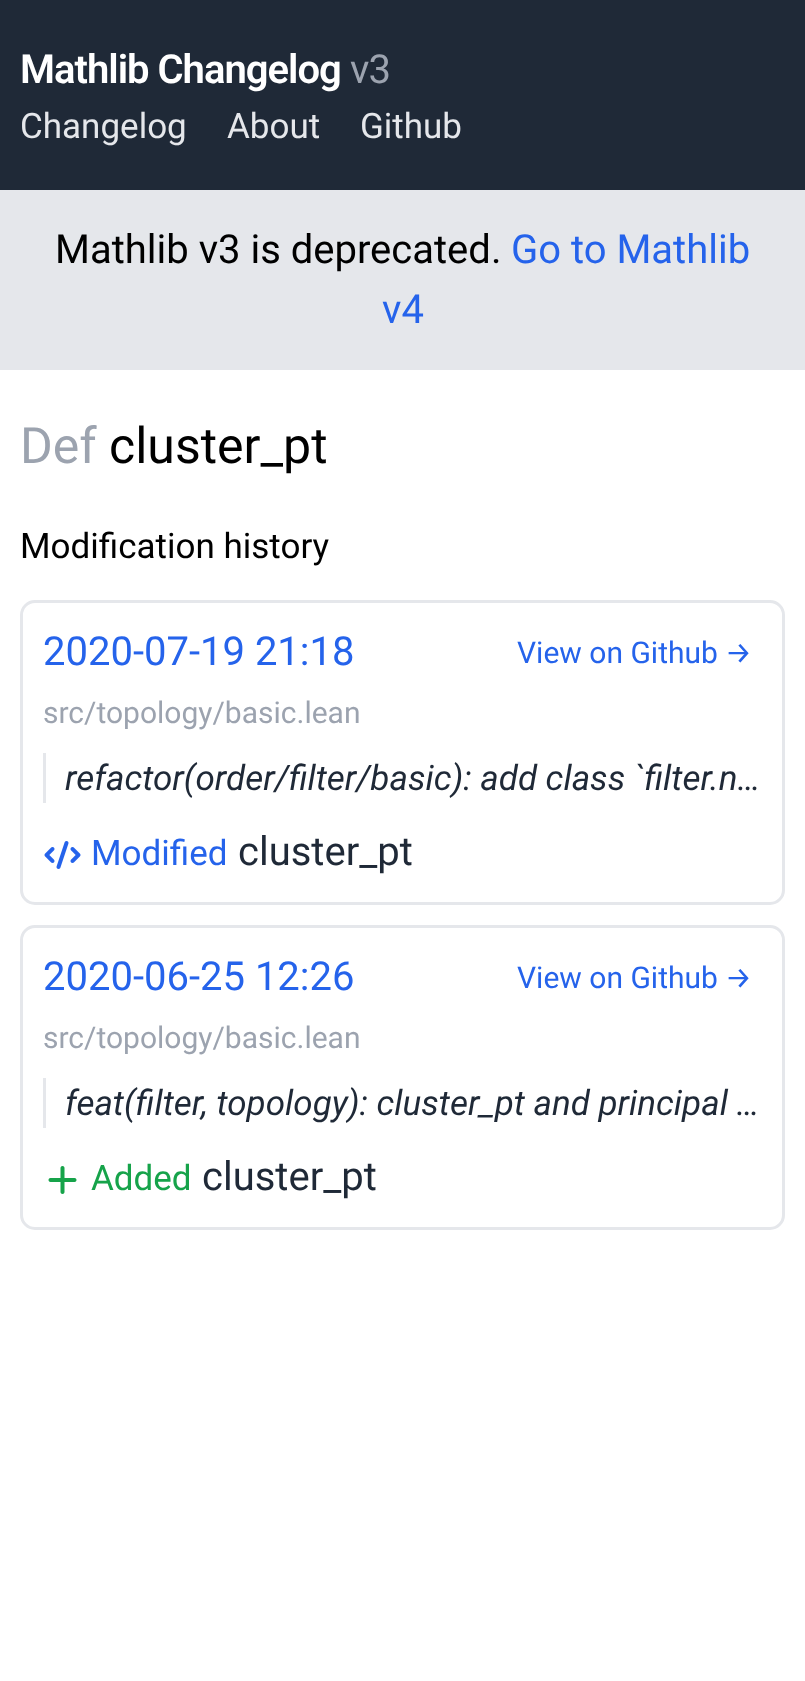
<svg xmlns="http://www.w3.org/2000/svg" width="805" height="1681">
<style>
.a{font:600 40px Roboto;letter-spacing:-1px;fill:#fff}
.b{font:40px Roboto;letter-spacing:-1px;fill:#9ca3af}
.c{font:35px Roboto;fill:#e5e7eb}
.d{font:40px Roboto;fill:#000}
.e{font:40px Roboto;fill:#2563eb}
.f{font:50px Roboto;fill:#9ca3af}
.g{font:50px Roboto;fill:#000}
.h{font:35px Roboto;fill:#000}
.i{font:30px Roboto;fill:#9ca3af}
.j{font:italic 35px Roboto;fill:#1f2937}
.k{font:35px Roboto;fill:#2563eb}
.l{font:40px Roboto;fill:#1f2937}
.m{font:30px Roboto;fill:#2563eb}
.n{font:30px Fira Sans;fill:#2563eb}
.o{font:35px Roboto;fill:#16a34a}
</style>
<rect width="100%" height="100%" fill="#fff"/>
<path fill="#1f2937" d="M0 0h805v190H0z"/>
<path fill="#e5e7eb" d="M0 190h805v180H0z"/>
<rect fill="none" stroke="#e5e7eb" stroke-width="3" x="21.5" y="601.5" width="762" height="302" rx="13.5"/>
<path fill="#e5e7eb" d="M43 753h3v50H43z"/>
<image href="1.png" x="44" y="841" width="37" height="28"/>
<rect fill="none" stroke="#e5e7eb" stroke-width="3" x="21.5" y="926.5" width="762" height="302" rx="13.5"/>
<path fill="#e5e7eb" d="M43 1078h3v50H43z"/>
<image href="2.png" x="48" y="1166" width="29" height="28"/>
<text class="a" x="20" y="83">Mathlib Changelog</text>
<text class="b" x="350" y="83">v3</text>
<text class="c" x="20" y="138">Changelog</text>
<text class="c" x="227" y="138">About</text>
<text class="c" x="360" y="138">Github</text>
<text class="d" x="55" y="263">Mathlib v3 is deprecated.</text>
<text class="e" x="511" y="263">Go to Mathlib</text>
<text class="e" x="382" y="323">v4</text>
<text class="f" x="20" y="463">Def</text>
<text class="g" x="109" y="463">cluster_pt</text>
<text class="h" x="20" y="558">Modification history</text>
<text class="e" x="43" y="665">2020-07-19 21:18</text>
<text class="i" x="43" y="723">src/topology/basic.lean</text>
<text class="j" x="65" y="790">refactor(order/filter/basic): add class `filter.n…</text>
<text class="k" x="91" y="865">Modified</text>
<text class="l" x="238" y="865">cluster_pt</text>
<text class="m" x="517" y="663">View on Github</text>
<text class="n" x="725" y="663">→</text>
<text class="e" x="43" y="990">2020-06-25 12:26</text>
<text class="i" x="43" y="1048">src/topology/basic.lean</text>
<text class="j" x="65" y="1115">feat(filter, topology): cluster_pt and principal …</text>
<text class="o" x="91" y="1190">Added</text>
<text class="l" x="202" y="1190">cluster_pt</text>
<text class="m" x="517" y="988">View on Github</text>
<text class="n" x="725" y="988">→</text>
</svg>
